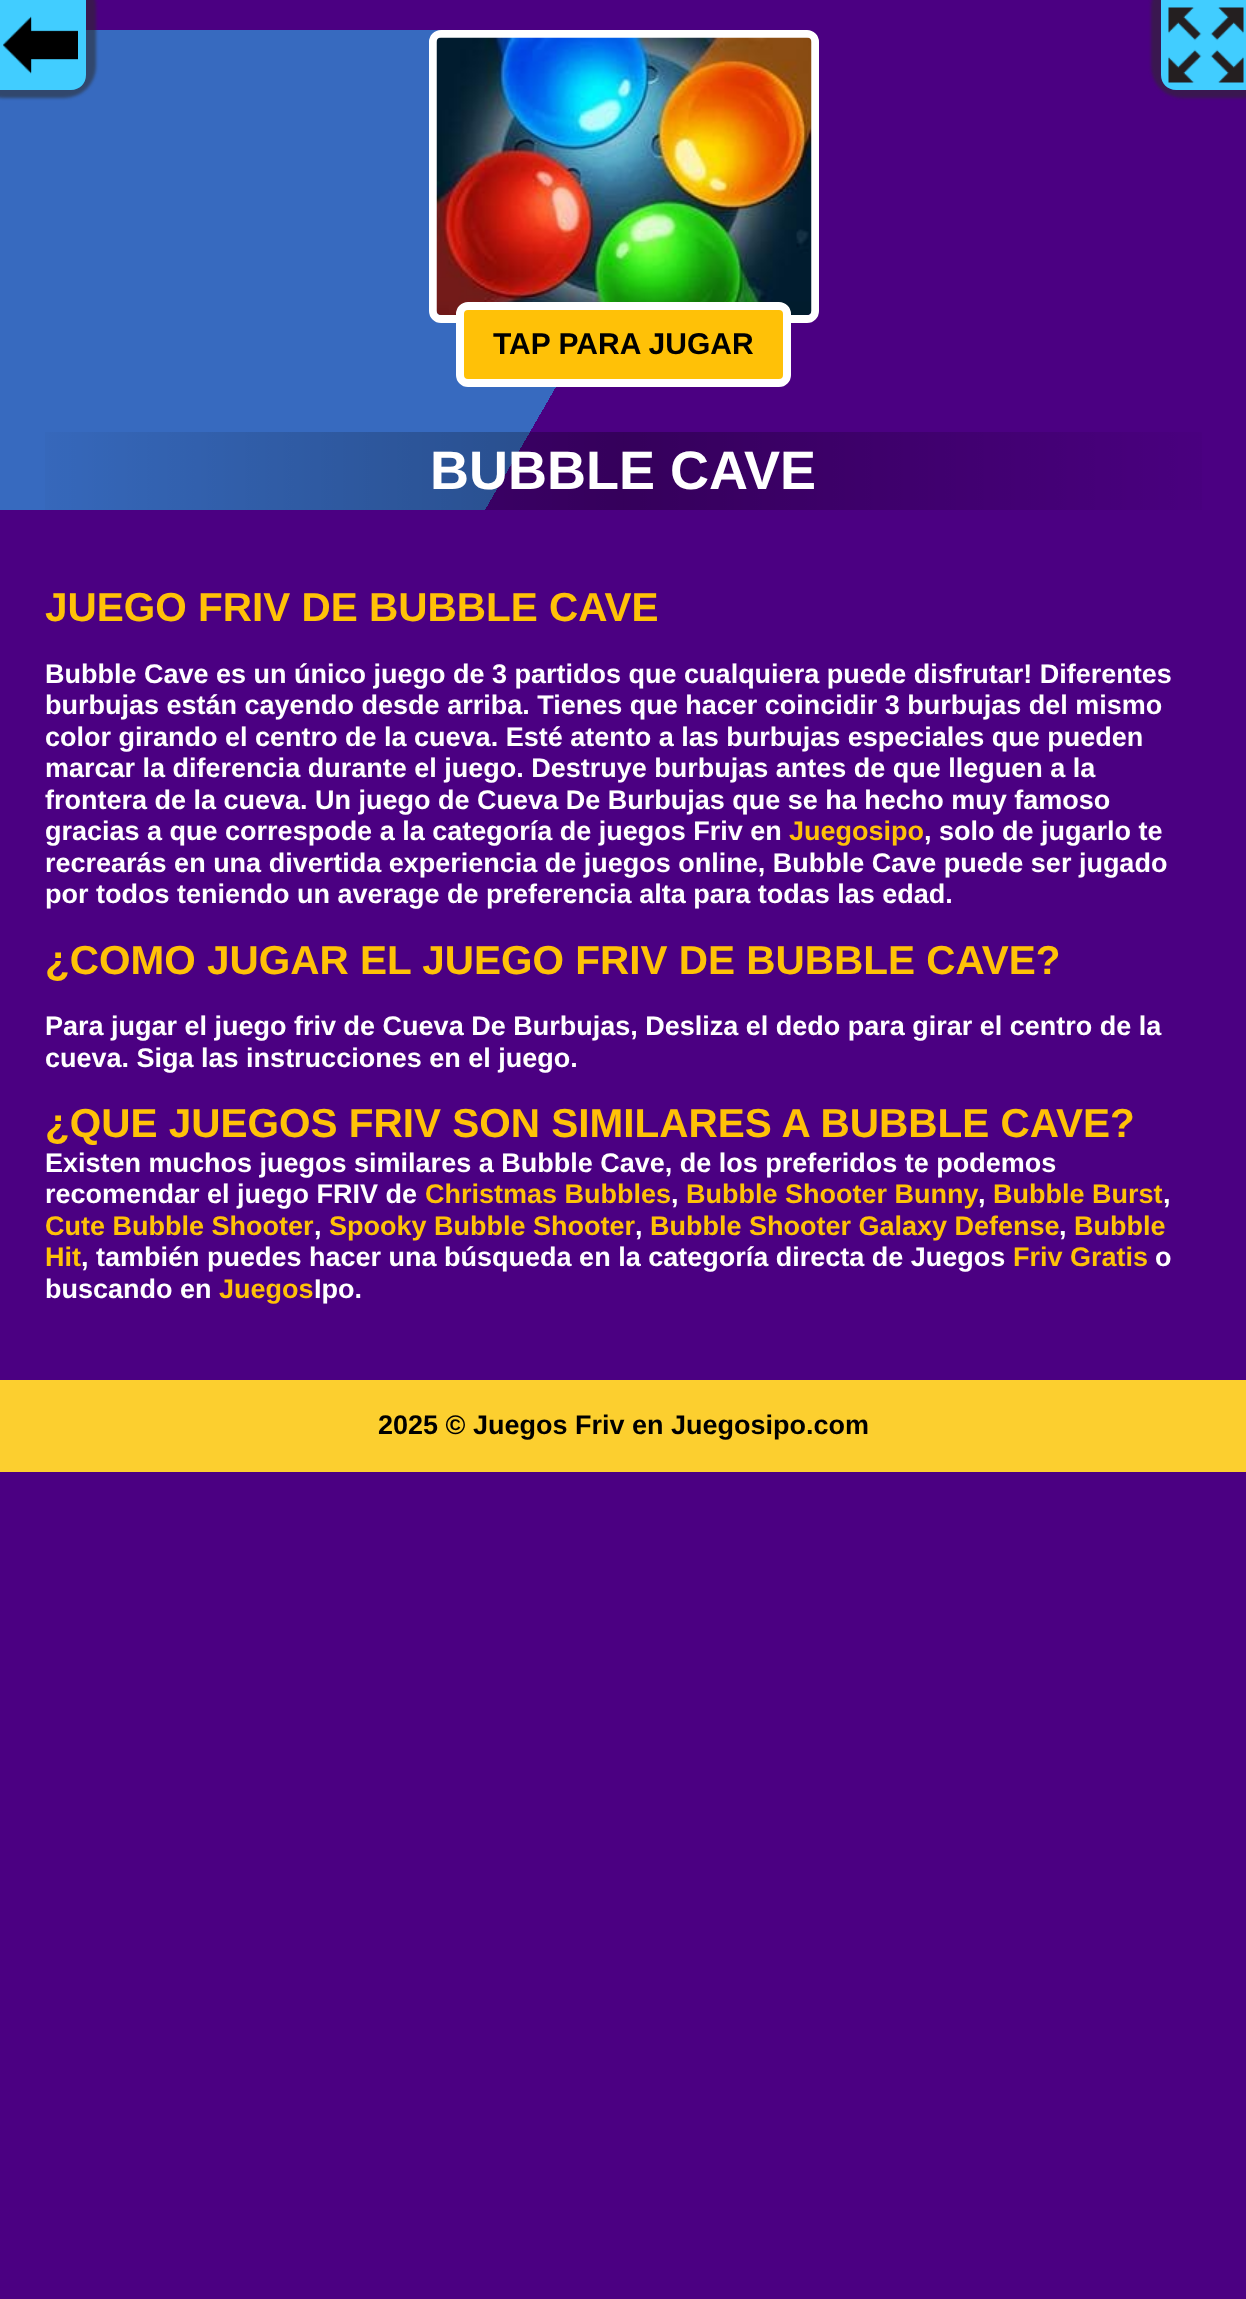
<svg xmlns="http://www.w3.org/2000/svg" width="1246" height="2299">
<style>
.a{font:bold 30px Liberation Sans;fill:#000}
.b{font:bold 54px Liberation Sans;fill:#fff}
.c{font:bold 40.5px Liberation Sans;fill:#ffc107}
.d{font:bold 27px Liberation Sans;fill:#fff}
.e{font:bold 27px Liberation Sans;fill:#ffc107}
.f{font:bold 27px Liberation Sans;fill:#000}
</style>
<defs>
<linearGradient id="g1" gradientUnits="userSpaceOnUse" x1="1195" y1="600" x2="52" y2="-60"><stop offset="0.5" stop-color="#4b0082"/><stop offset="0.5" stop-color="#376abf"/></linearGradient>
<linearGradient id="g2" gradientUnits="userSpaceOnUse" x1="0" y1="471" x2="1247" y2="471"><stop offset="0" stop-color="#000" stop-opacity="0"/><stop offset="0.5" stop-color="#000" stop-opacity="0.3"/><stop offset="1" stop-color="#000" stop-opacity="0"/></linearGradient>
</defs>
<rect width="100%" height="100%" fill="#4b0082"/>
<path fill="url(#g1)" d="M0 30h762v480H0z"/>
<rect fill="#2d2b268a" filter="blur(1.5px)" x="-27" y="-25" width="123" height="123" rx="32"/>
<path fill="#41cdff" d="M-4 0h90v75c0 8.5-6.5 15-15 15h-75z"/>
<image href="1.png" x="3" y="16" width="75" height="58"/>
<rect fill="#2d2b268a" filter="blur(1.5px)" x="1151" y="-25" width="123" height="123" rx="32"/>
<path fill="#41cdff" d="M1161 0h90v90h-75c-8.5 0-15-6.5-15-15z"/>
<image href="2.png" x="1168" y="7" width="76" height="76"/>
<rect fill="none" stroke="#fff" stroke-width="8" x="433" y="34" width="382" height="285" rx="8"/>
<image href="3.png" x="436" y="37" width="376" height="278"/>
<rect fill="#ffc107" stroke="#fff" stroke-width="8" x="460" y="306" width="327" height="77" rx="8"/>
<path fill="url(#g2)" d="M45 432h1157v78H45z"/>
<path fill="#fccf2f" d="M0 1380h1246v92H0z"/>
<text class="a" x="493" y="354">TAP PARA JUGAR</text>
<text class="b" x="430" y="489">BUBBLE CAVE</text>
<text class="c" x="45" y="621">JUEGO FRIV DE BUBBLE CAVE</text>
<text class="d" x="45" y="683">Bubble Cave es un único juego de 3 partidos que cualquiera puede disfrutar! Diferentes</text>
<text class="d" x="45" y="714">burbujas están cayendo desde arriba. Tienes que hacer coincidir 3 burbujas del mismo</text>
<text class="d" x="45" y="746">color girando el centro de la cueva. Esté atento a las burbujas especiales que pueden</text>
<text class="d" x="45" y="777">marcar la diferencia durante el juego. Destruye burbujas antes de que lleguen a la</text>
<text class="d" x="45" y="809">frontera de la cueva. Un juego de Cueva De Burbujas que se ha hecho muy famoso</text>
<text class="d" x="45" y="840">gracias a que correspode a la categoría de juegos Friv en</text>
<text class="e" x="789" y="840">Juegosipo</text>
<text class="d" x="924" y="840">, solo de jugarlo te</text>
<text class="d" x="45" y="872">recrearás en una divertida experiencia de juegos online, Bubble Cave puede ser jugado</text>
<text class="d" x="45" y="903">por todos teniendo un average de preferencia alta para todas las edad.</text>
<text class="c" x="45" y="974">¿COMO JUGAR EL JUEGO FRIV DE BUBBLE CAVE?</text>
<text class="d" x="45" y="1035">Para jugar el juego friv de Cueva De Burbujas, Desliza el dedo para girar el centro de la</text>
<text class="d" x="45" y="1067">cueva. Siga las instrucciones en el juego.</text>
<text class="c" x="45" y="1137">¿QUE JUEGOS FRIV SON SIMILARES A BUBBLE CAVE?</text>
<text class="d" x="45" y="1172">Existen muchos juegos similares a Bubble Cave, de los preferidos te podemos</text>
<text class="d" x="45" y="1203">recomendar el juego FRIV de</text>
<text class="e" x="425" y="1203">Christmas Bubbles</text>
<text class="d" x="671" y="1203">,</text>
<text class="e" x="686" y="1203">Bubble Shooter Bunny</text>
<text class="d" x="978" y="1203">,</text>
<text class="e" x="993" y="1203">Bubble Burst</text>
<text class="d" x="1163" y="1203">,</text>
<text class="e" x="45" y="1235">Cute Bubble Shooter</text>
<text class="d" x="314" y="1235">,</text>
<text class="e" x="329" y="1235">Spooky Bubble Shooter</text>
<text class="d" x="635" y="1235">,</text>
<text class="e" x="650" y="1235">Bubble Shooter Galaxy Defense</text>
<text class="d" x="1059" y="1235">,</text>
<text class="e" x="1074" y="1235">Bubble</text>
<text class="e" x="45" y="1266">Hit</text>
<text class="d" x="81" y="1266">, también puedes hacer una búsqueda en la categoría directa de Juegos</text>
<text class="e" x="1013" y="1266">Friv Gratis</text>
<text class="d" x="1155" y="1266">o</text>
<text class="d" x="45" y="1298">buscando en</text>
<text class="e" x="219" y="1298">Juegos</text>
<text class="d" x="314" y="1298">Ipo.</text>
<text class="f" x="378" y="1434">2025 © Juegos Friv en Juegosipo.com</text>
</svg>
